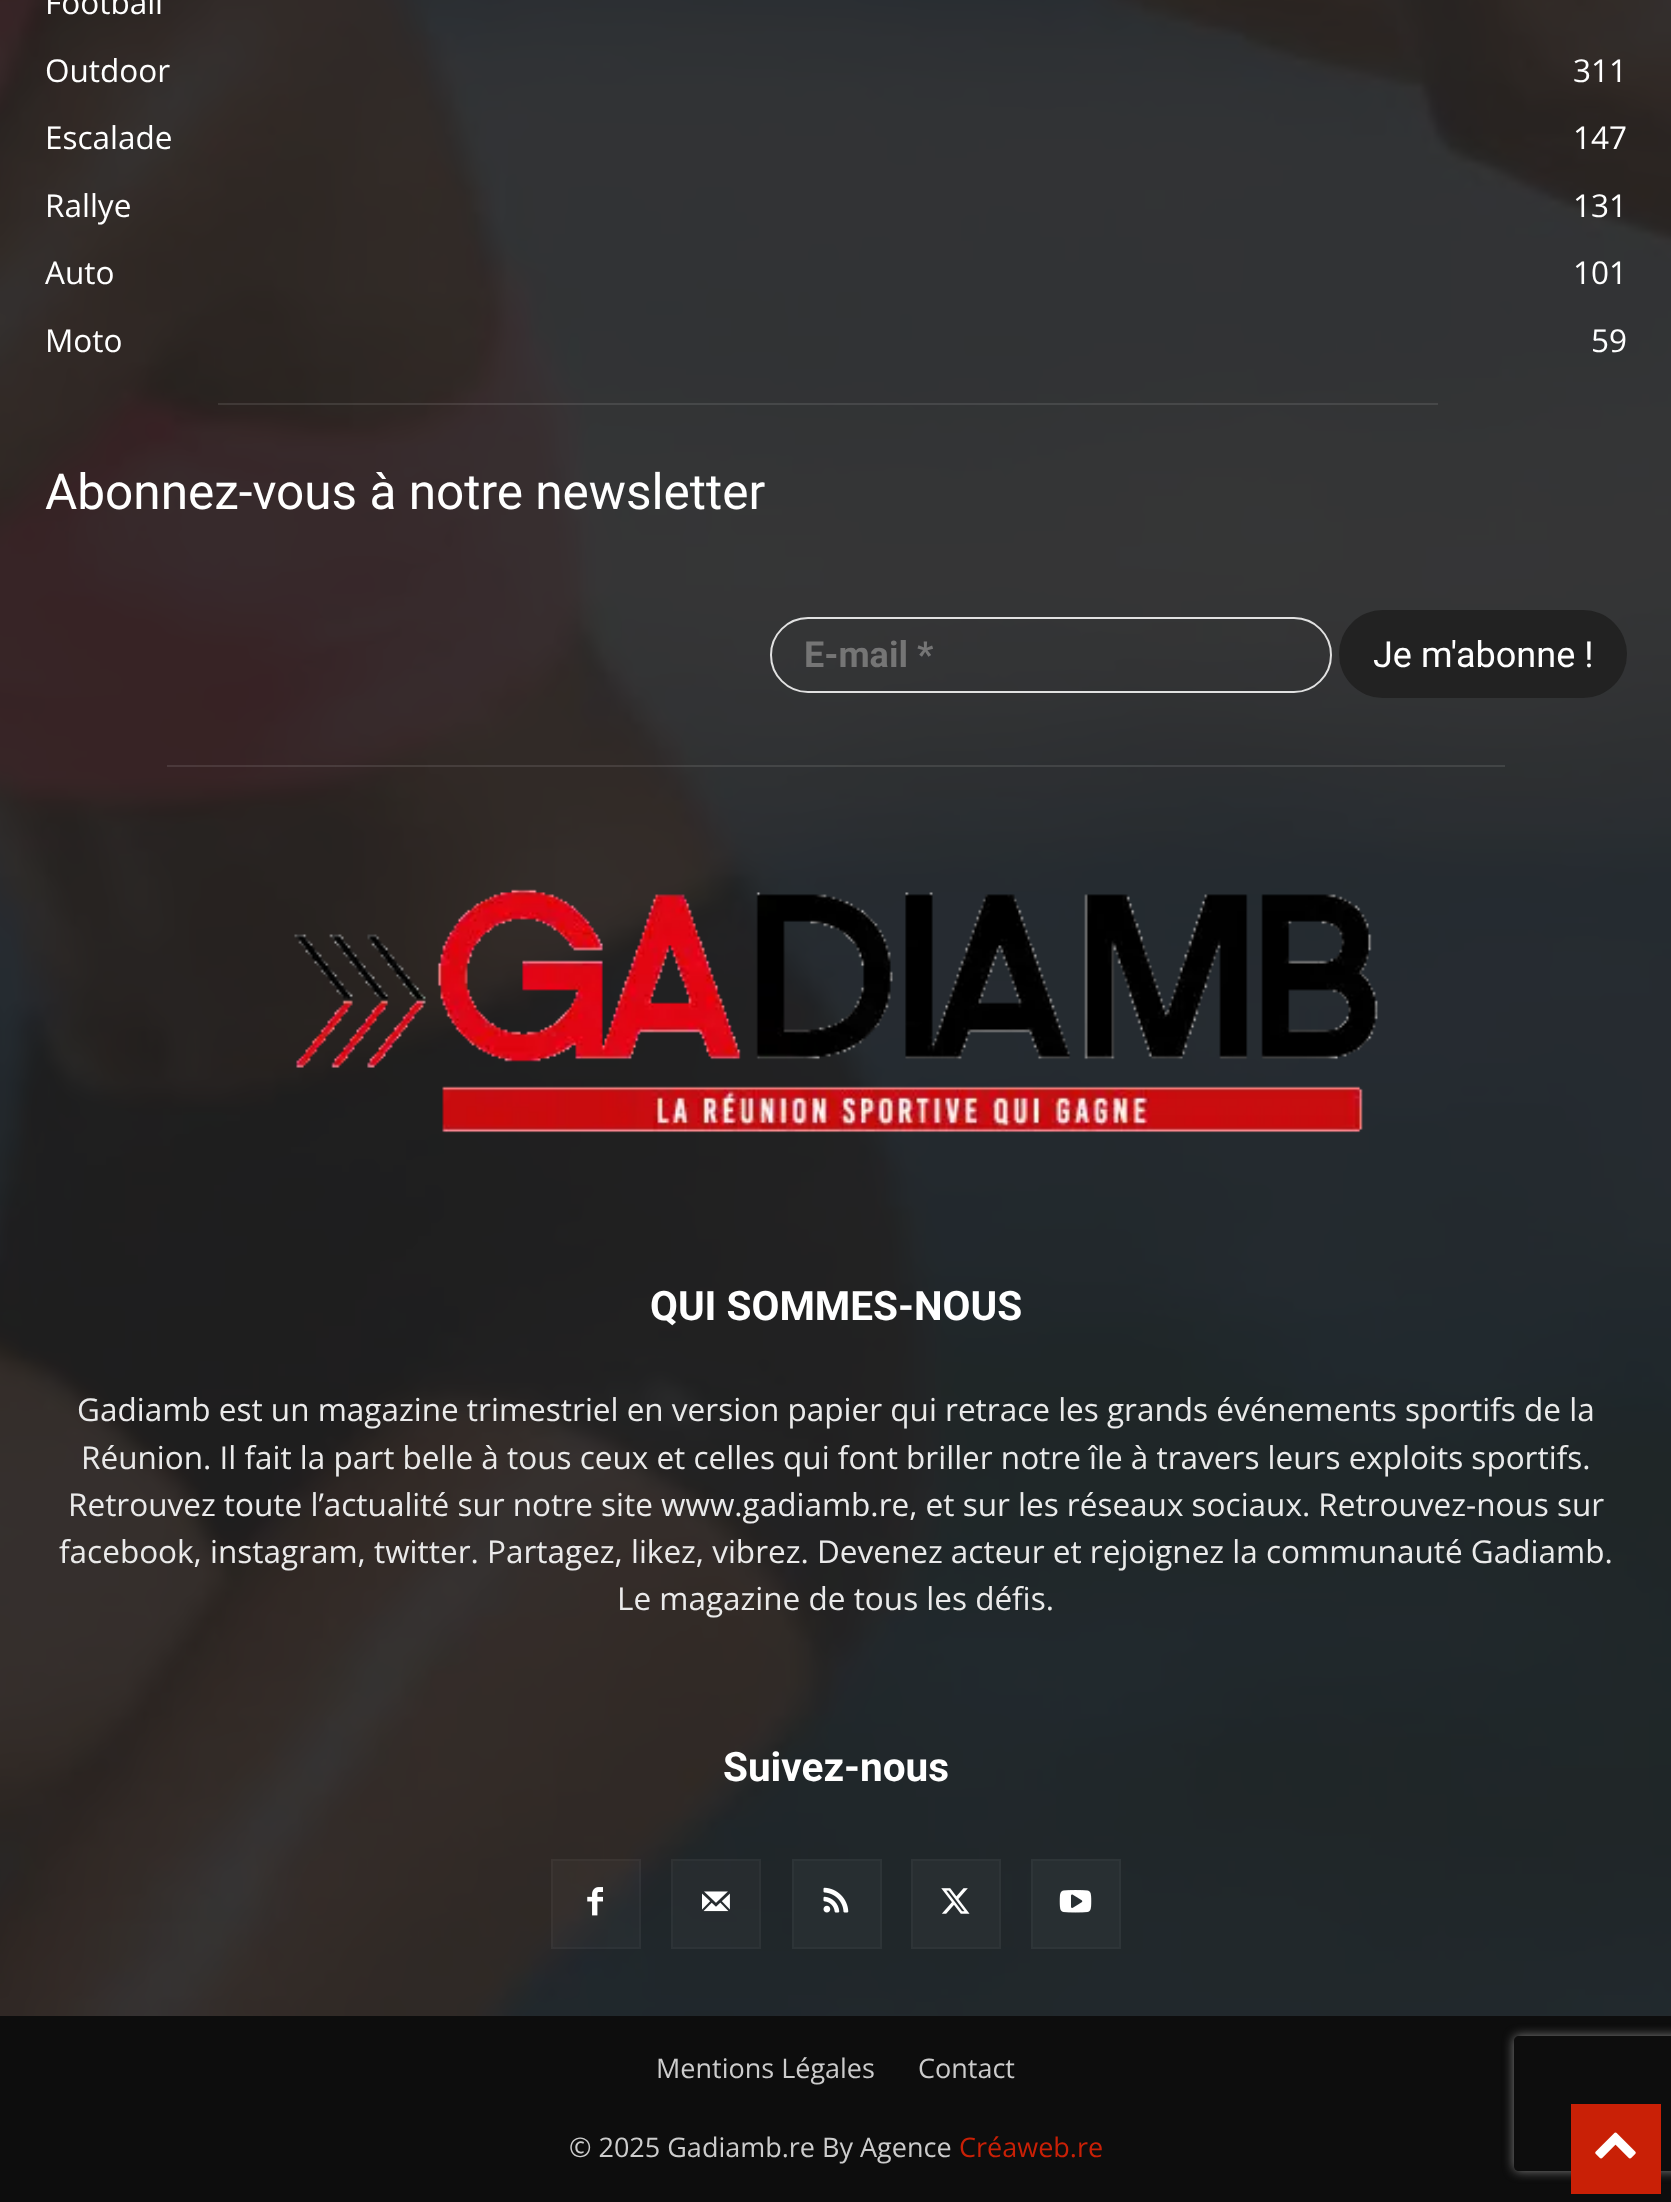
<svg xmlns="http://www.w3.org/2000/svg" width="1671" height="2202">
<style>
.a{font:31.5px Open Sans;fill:#fff}
.b{font:49.5px Roboto;fill:#fff}
.c{font:bold 36px Roboto;fill:#757575}
.d{font:36px Roboto;fill:#fff}
.e{font:bold 40.5px Roboto;fill:#fff}
.f{font:31.5px Open Sans;fill:#eaeaea}
.g{font:27px Open Sans;fill:#ccc}
.h{font:27px Open Sans;fill:#c92006}
</style>
<defs>
<clipPath id="clip1"><path d="M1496 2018h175v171h-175zm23 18h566c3 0 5 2 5 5v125c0 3-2 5-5 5h-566c-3 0-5-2-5-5v-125c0-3 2-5 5-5z" clip-rule="evenodd"/></clipPath>
</defs>
<rect width="100%" height="100%" fill="#0d0d0d"/>
<path fill="#222" d="M0 0h1671v2016H0z"/>
<image href="1.png" x="0" y="0" width="1671" height="2016"/>
<path fill="#ffffff1a" d="M218 403h1220v2H218z"/>
<rect fill="none" stroke="#e1e1e1" stroke-width="2" x="771" y="618" width="560" height="74" rx="37"/>
<rect fill="#222" x="1339" y="610" width="288" height="88" rx="44"/>
<path fill="#ffffff1a" d="M167 765h1338v2H167z"/>
<image href="2.png" x="294" y="889" width="1084" height="244"/>
<path fill="#ffffff08" d="M551 1859h90v90H551z"/>
<image href="3.png" x="587" y="1887" width="16" height="29"/>
<path fill="none" stroke="#ffffff08" stroke-width="2" d="M552 1860h88v88H552z"/>
<path fill="#ffffff08" d="M671 1859h90v90H671z"/>
<image href="4.png" x="702" y="1891" width="28" height="21"/>
<path fill="none" stroke="#ffffff08" stroke-width="2" d="M672 1860h88v88H672z"/>
<path fill="#272e31" d="M794 1861h86v86H794z"/>
<image href="5.png" x="823" y="1887" width="26" height="26"/>
<path fill="none" stroke="#2d3437" stroke-width="2" d="M793 1860h88v88H793z"/>
<path fill="#282e31" d="M913 1861h86v86H913z"/>
<image href="6.png" x="941" y="1888" width="29" height="26"/>
<path fill="none" stroke="#2e3437" stroke-width="2" d="M912 1860h88v88H912z"/>
<path fill="#282f32" d="M1033 1861h86v86H1033z"/>
<image href="7.png" x="1059" y="1890" width="33" height="23"/>
<path fill="none" stroke="#2e3538" stroke-width="2" d="M1032 1860h88v88H1032z"/>
<g clip-path="url(#clip1)">
<rect fill="#808080" filter="blur(5.5px)" x="1514" y="2036" width="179" height="135" rx="5"/>
</g>
<path fill="#c92006" d="M1571 2104h90v90H1571z"/>
<image href="8.png" x="1595" y="2132" width="41" height="27"/>
<text class="a" x="45" y="14">Football</text>
<text class="a" x="45" y="82">Outdoor</text>
<text class="a" x="1573" y="82">311</text>
<text class="a" x="45" y="149">Escalade</text>
<text class="a" x="1573" y="149">147</text>
<text class="a" x="45" y="217">Rallye</text>
<text class="a" x="1573" y="217">131</text>
<text class="a" x="45" y="284">Auto</text>
<text class="a" x="1573" y="284">101</text>
<text class="a" x="45" y="352">Moto</text>
<text class="a" x="1591" y="352">59</text>
<text class="b" x="45" y="509">Abonnez-vous à notre newsletter</text>
<text class="c" x="804" y="667">E-mail *</text>
<text class="d" x="1373" y="667">Je m'abonne !</text>
<text class="e" x="650" y="1320">QUI SOMMES-NOUS</text>
<text class="f" x="77" y="1421">Gadiamb est un magazine trimestriel en version papier qui retrace les grands événements sportifs de la</text>
<text class="f" x="81" y="1469">Réunion. Il fait la part belle à tous ceux et celles qui font briller notre île à travers leurs exploits sportifs.</text>
<text class="f" x="68" y="1516">Retrouvez toute l’actualité sur notre site www.gadiamb.re, et sur les réseaux sociaux. Retrouvez-nous sur</text>
<text class="f" x="59" y="1563">facebook, instagram, twitter. Partagez, likez, vibrez. Devenez acteur et rejoignez la communauté Gadiamb.</text>
<text class="f" x="617" y="1610">Le magazine de tous les défis.</text>
<text class="e" x="723" y="1781">Suivez-nous</text>
<text class="g" x="656" y="2078">Mentions Légales</text>
<text class="g" x="918" y="2078">Contact</text>
<text class="g" x="569" y="2157">© 2025 Gadiamb.re By Agence</text>
<text class="h" x="959" y="2157">Créaweb.re</text>
</svg>
